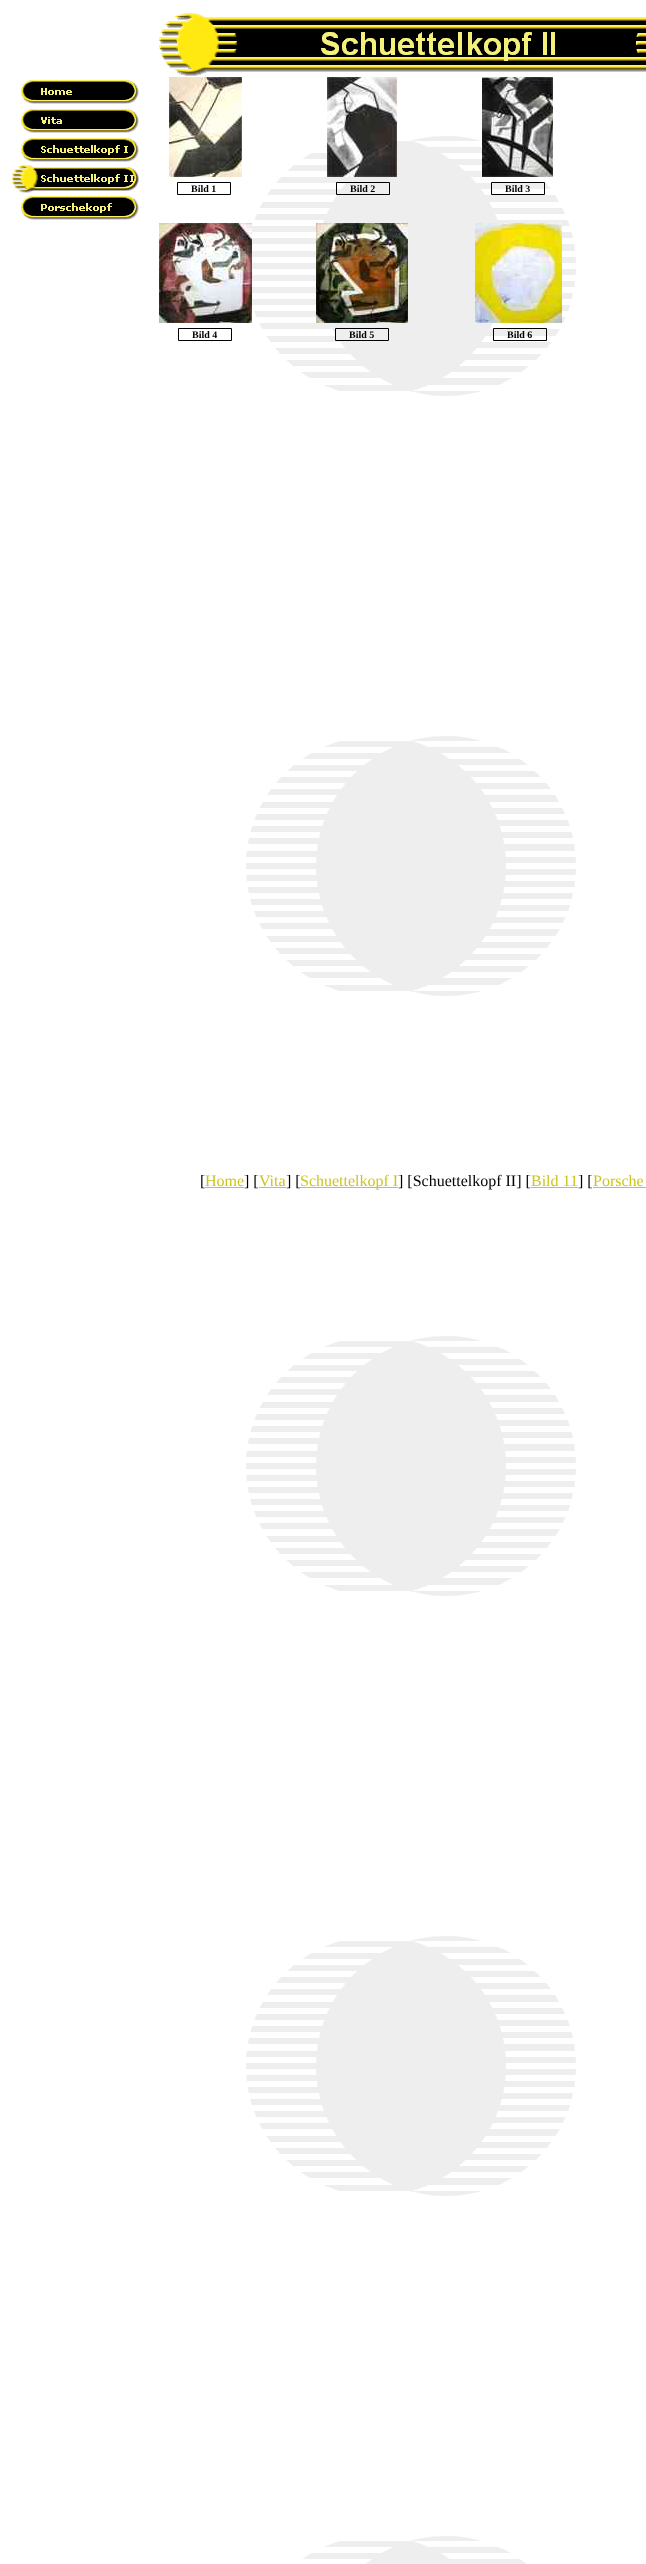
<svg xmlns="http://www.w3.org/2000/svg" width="646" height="2564">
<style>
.a{font:bold 10px Liberation Serif;fill:#000}
.b{font:16px Liberation Serif;fill:#000}
.c{font:16px Liberation Serif;fill:#cdc51d}
</style>
<rect width="100%" height="100%" fill="#fff"/>
<image href="1.png" x="0" y="0" width="646" height="2564"/>
<image href="2.png" x="21" y="79" width="118" height="25"/>
<image href="3.png" x="21" y="108" width="118" height="25"/>
<image href="4.png" x="21" y="137" width="118" height="25"/>
<image href="5.png" x="12" y="165" width="127" height="28"/>
<image href="6.png" x="21" y="195" width="118" height="25"/>
<image href="7.png" x="159" y="13" width="487" height="63"/>
<image href="8.png" x="169" y="77" width="73" height="100"/>
<path fill="none" stroke="#000" d="M177.5 182.5h53v12H177.5z"/>
<image href="9.png" x="159" y="223" width="93" height="100"/>
<path fill="none" stroke="#000" d="M178.5 328.5h53v12H178.5z"/>
<image href="10.png" x="327" y="77" width="70" height="100"/>
<path fill="none" stroke="#000" d="M336.5 182.5h53v12H336.5z"/>
<image href="11.png" x="316" y="223" width="92" height="100"/>
<path fill="none" stroke="#000" d="M335.5 328.5h53v12H335.5z"/>
<image href="12.png" x="482" y="77" width="71" height="100"/>
<path fill="none" stroke="#000" d="M491.5 182.5h53v12H491.5z"/>
<image href="13.png" x="475" y="223" width="87" height="100"/>
<path fill="none" stroke="#000" d="M493.5 328.5h53v12H493.5z"/>
<path fill="#cdc51d" d="M205 1187h39v1H205z"/>
<path fill="#cdc51d" d="M259 1187h27v1H259z"/>
<path fill="#cdc51d" d="M300 1187h98v1H300z"/>
<path fill="#cdc51d" d="M531 1187h47v1H531z"/>
<path fill="#cdc51d" d="M593 1187h53v1H593z"/>
<text class="a" x="191" y="192">Bild 1</text>
<text class="a" x="192" y="338">Bild 4</text>
<text class="a" x="350" y="192">Bild 2</text>
<text class="a" x="349" y="338">Bild 5</text>
<text class="a" x="505" y="192">Bild 3</text>
<text class="a" x="507" y="338">Bild 6</text>
<text class="b" x="200" y="1186">[</text>
<text class="c" x="205" y="1186">Home</text>
<text class="b" x="244" y="1186">] [</text>
<text class="c" x="259" y="1186">Vita</text>
<text class="b" x="286" y="1186">] [</text>
<text class="c" x="300" y="1186">Schuettelkopf I</text>
<text class="b" x="398" y="1186">] [Schuettelkopf II] [</text>
<text class="c" x="531" y="1186">Bild 11</text>
<text class="b" x="578" y="1186">] [</text>
<text class="c" x="593" y="1186">Porsche</text>
</svg>
